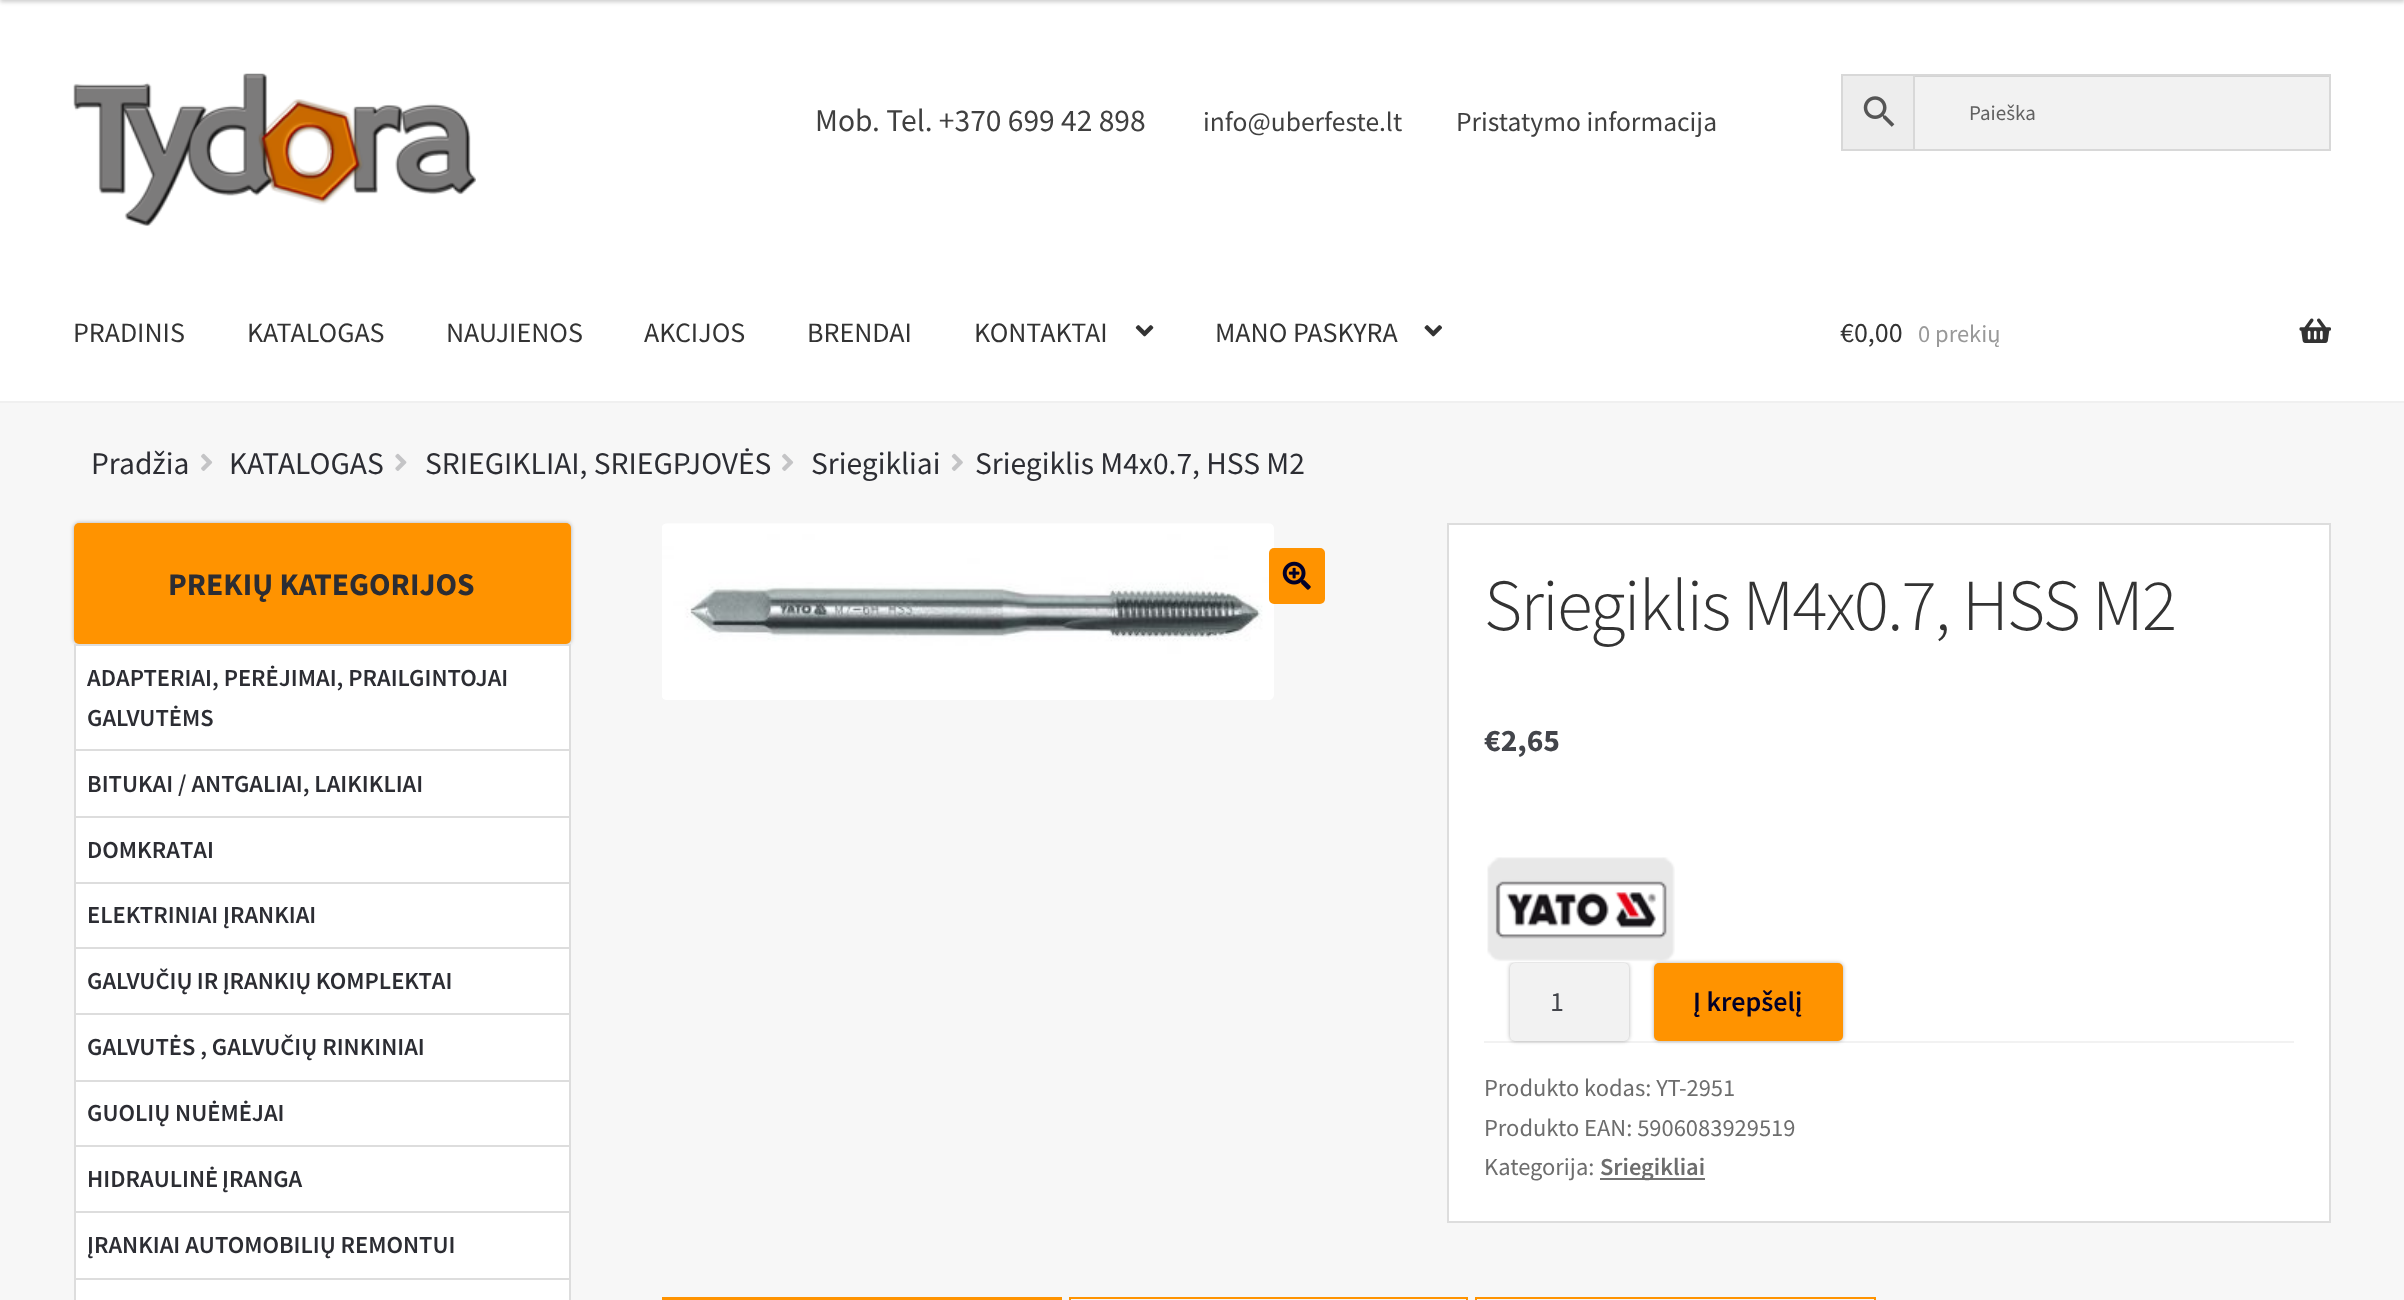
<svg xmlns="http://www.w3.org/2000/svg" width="2404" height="1300">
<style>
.a{font:31.5px Source Sans Pro;fill:#404040}
.b{font:27.5px Source Sans Pro;fill:#404040}
.c{font:21px Source Sans Pro;fill:#616161}
.d{font:28px Source Sans Pro;fill:#333}
.e{font:24.5px Source Sans Pro;fill:#999}
.f{font:31.5px Source Sans Pro;fill:#2c2d33}
.g{font:bold 31.5px Source Sans Pro;fill:#2c2d33}
.h{font:600 24.5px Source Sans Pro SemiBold;fill:#2c2d33}
.i{font:300 73.25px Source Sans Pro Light;letter-spacing:-1.75px;fill:#333}
.j{font:bold 31.5px Source Sans Pro;fill:#43454b}
.k{font:28px Source Sans Pro;fill:#43454b}
.l{font:600 28px Source Sans Pro SemiBold;fill:#020028}
.m{font:24.5px Source Sans Pro;fill:#6d6d6d}
.n{font:600 24.5px Source Sans Pro SemiBold;fill:#6d6d6d}
</style>
<rect width="100%" height="100%" fill="#f7f7f7"/>
<path fill="#fff" d="M0 0h2404v401H0z"/>
<path fill="#00000033" filter="blur(2px)" d="M0 -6h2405v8H0z"/>
<path fill="#f0f0f0" d="M0 401h2404v2H0z"/>
<image href="1.png" x="73" y="73" width="403" height="153"/>
<path fill="#ededed" stroke="#d8d8d8" stroke-width="2" d="M1842 75h72v75H1842z"/>
<image href="2.png" x="1863" y="96" width="32" height="31"/>
<path fill="#f2f2f2" d="M1915 77h414v72H1915z"/>
<path fill="#d4d4d4" d="M1915 76h414v1H1915z"/>
<path fill="none" stroke="#d8d8d8" stroke-width="2" d="M1914 75h416v75H1914z"/>
<image href="3.png" x="1135" y="325" width="19" height="12"/>
<image href="4.png" x="1424" y="325" width="18" height="12"/>
<image href="5.png" x="2299" y="318" width="32" height="25"/>
<image href="6.png" x="201" y="453" width="12" height="18"/>
<image href="7.png" x="395" y="453" width="12" height="18"/>
<image href="6.png" x="782" y="453" width="12" height="18"/>
<image href="8.png" x="951" y="453" width="12" height="18"/>
<rect fill="#0000004d" filter="blur(2px)" x="74" y="523" width="497" height="121" rx="5"/>
<rect fill="#ff9300" x="74" y="523" width="497" height="121" rx="5"/>
<path fill="#fff" d="M76 646h493v654H76z"/>
<path fill="#ddd" d="M74 644h497v2H74z"/>
<path fill="#ddd" d="M569 644h2v656H569z"/>
<path fill="#ddd" d="M74 644h2v656H74z"/>
<path fill="#ddd" d="M75 749h494v2H75z"/>
<path fill="#ddd" d="M75 816h494v2H75z"/>
<path fill="#ddd" d="M75 882h494v2H75z"/>
<path fill="#ddd" d="M75 947h494v2H75z"/>
<path fill="#ddd" d="M75 1013h494v2H75z"/>
<path fill="#ddd" d="M75 1080h494v2H75z"/>
<path fill="#ddd" d="M75 1145h494v2H75z"/>
<path fill="#ddd" d="M75 1211h494v2H75z"/>
<path fill="#ddd" d="M75 1278h494v2H75z"/>
<image href="9.png" x="662" y="523" width="612" height="177"/>
<rect fill="#ff9300" x="1269" y="548" width="56" height="56" rx="5"/>
<image href="10.png" x="1282" y="561" width="29" height="29"/>
<path fill="#fff" stroke="#ddd" stroke-width="2" d="M1448 524h882v698H1448z"/>
<path fill="#f2f2f2" d="M1484 1041h810v2H1484z"/>
<rect fill="#0000004d" filter="blur(2px)" x="1510" y="963" width="119" height="78" rx="5"/>
<image href="11.png" x="1487" y="857" width="188" height="106"/>
<rect fill="#f2f2f2" x="1510" y="963" width="119" height="78" rx="5"/>
<rect fill="#0000004d" filter="blur(2px)" x="1654" y="963" width="189" height="78" rx="5"/>
<rect fill="#ff9300" x="1654" y="963" width="189" height="78" rx="5"/>
<path fill="#727272" d="M1600 1178h105v2H1600z"/>
<path fill="#ff9300" d="M662 1297h400v3H662z"/>
<path fill="none" stroke="#ff9300" stroke-width="2" d="M1070 1298h397v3H1070z"/>
<path fill="none" stroke="#ff9300" stroke-width="2" d="M1476 1298h399v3H1476z"/>
<text class="a" x="815" y="131">Mob. Tel. +370 699 42 898</text>
<text class="b" x="1203" y="131">info@uberfeste.lt</text>
<text class="b" x="1456" y="131">Pristatymo informacija</text>
<text class="c" x="1969" y="120">Paieška</text>
<text class="d" x="73" y="342">PRADINIS</text>
<text class="d" x="247" y="342">KATALOGAS</text>
<text class="d" x="446" y="342">NAUJIENOS</text>
<text class="d" x="644" y="342">AKCIJOS</text>
<text class="d" x="807" y="342">BRENDAI</text>
<text class="d" x="974" y="342">KONTAKTAI</text>
<text class="d" x="1215" y="342">MANO PASKYRA</text>
<text class="d" x="1840" y="342">€0,00</text>
<text class="e" x="1918" y="342">0 prekių</text>
<text class="f" x="91" y="474">Pradžia</text>
<text class="f" x="229" y="474">KATALOGAS</text>
<text class="f" x="425" y="474">SRIEGIKLIAI, SRIEGPJOVĖS</text>
<text class="f" x="811" y="474">Sriegikliai</text>
<text class="f" x="975" y="474">Sriegiklis M4x0.7, HSS M2</text>
<text class="g" x="168" y="595">PREKIŲ KATEGORIJOS</text>
<text class="h" x="87" y="686">ADAPTERIAI, PERĖJIMAI, PRAILGINTOJAI</text>
<text class="h" x="87" y="726">GALVUTĖMS</text>
<text class="h" x="87" y="792">BITUKAI / ANTGALIAI, LAIKIKLIAI</text>
<text class="h" x="87" y="858">DOMKRATAI</text>
<text class="h" x="87" y="923">ELEKTRINIAI ĮRANKIAI</text>
<text class="h" x="87" y="989" word-spacing="-0.5">GALVUČIŲ IR ĮRANKIŲ KOMPLEKTAI</text>
<text class="h" x="87" y="1055">GALVUTĖS , GALVUČIŲ RINKINIAI</text>
<text class="h" x="87" y="1121">GUOLIŲ NUĖMĖJAI</text>
<text class="h" x="87" y="1187" word-spacing="-1">HIDRAULINĖ ĮRANGA</text>
<text class="h" x="87" y="1253">ĮRANKIAI AUTOMOBILIŲ REMONTUI</text>
<text class="i" x="1484" y="630">Sriegiklis M4x0.7, HSS M2</text>
<text class="j" x="1484" y="751">€2,65</text>
<text class="k" x="1550" y="1011">1</text>
<text class="l" x="1693" y="1011">Į krepšelį</text>
<text class="m" x="1484" y="1096">Produkto kodas: YT-2951</text>
<text class="m" x="1484" y="1136">Produkto EAN: 5906083929519</text>
<text class="m" x="1484" y="1175">Kategorija:</text>
<text class="n" x="1600" y="1175">Sriegikliai</text>
</svg>
